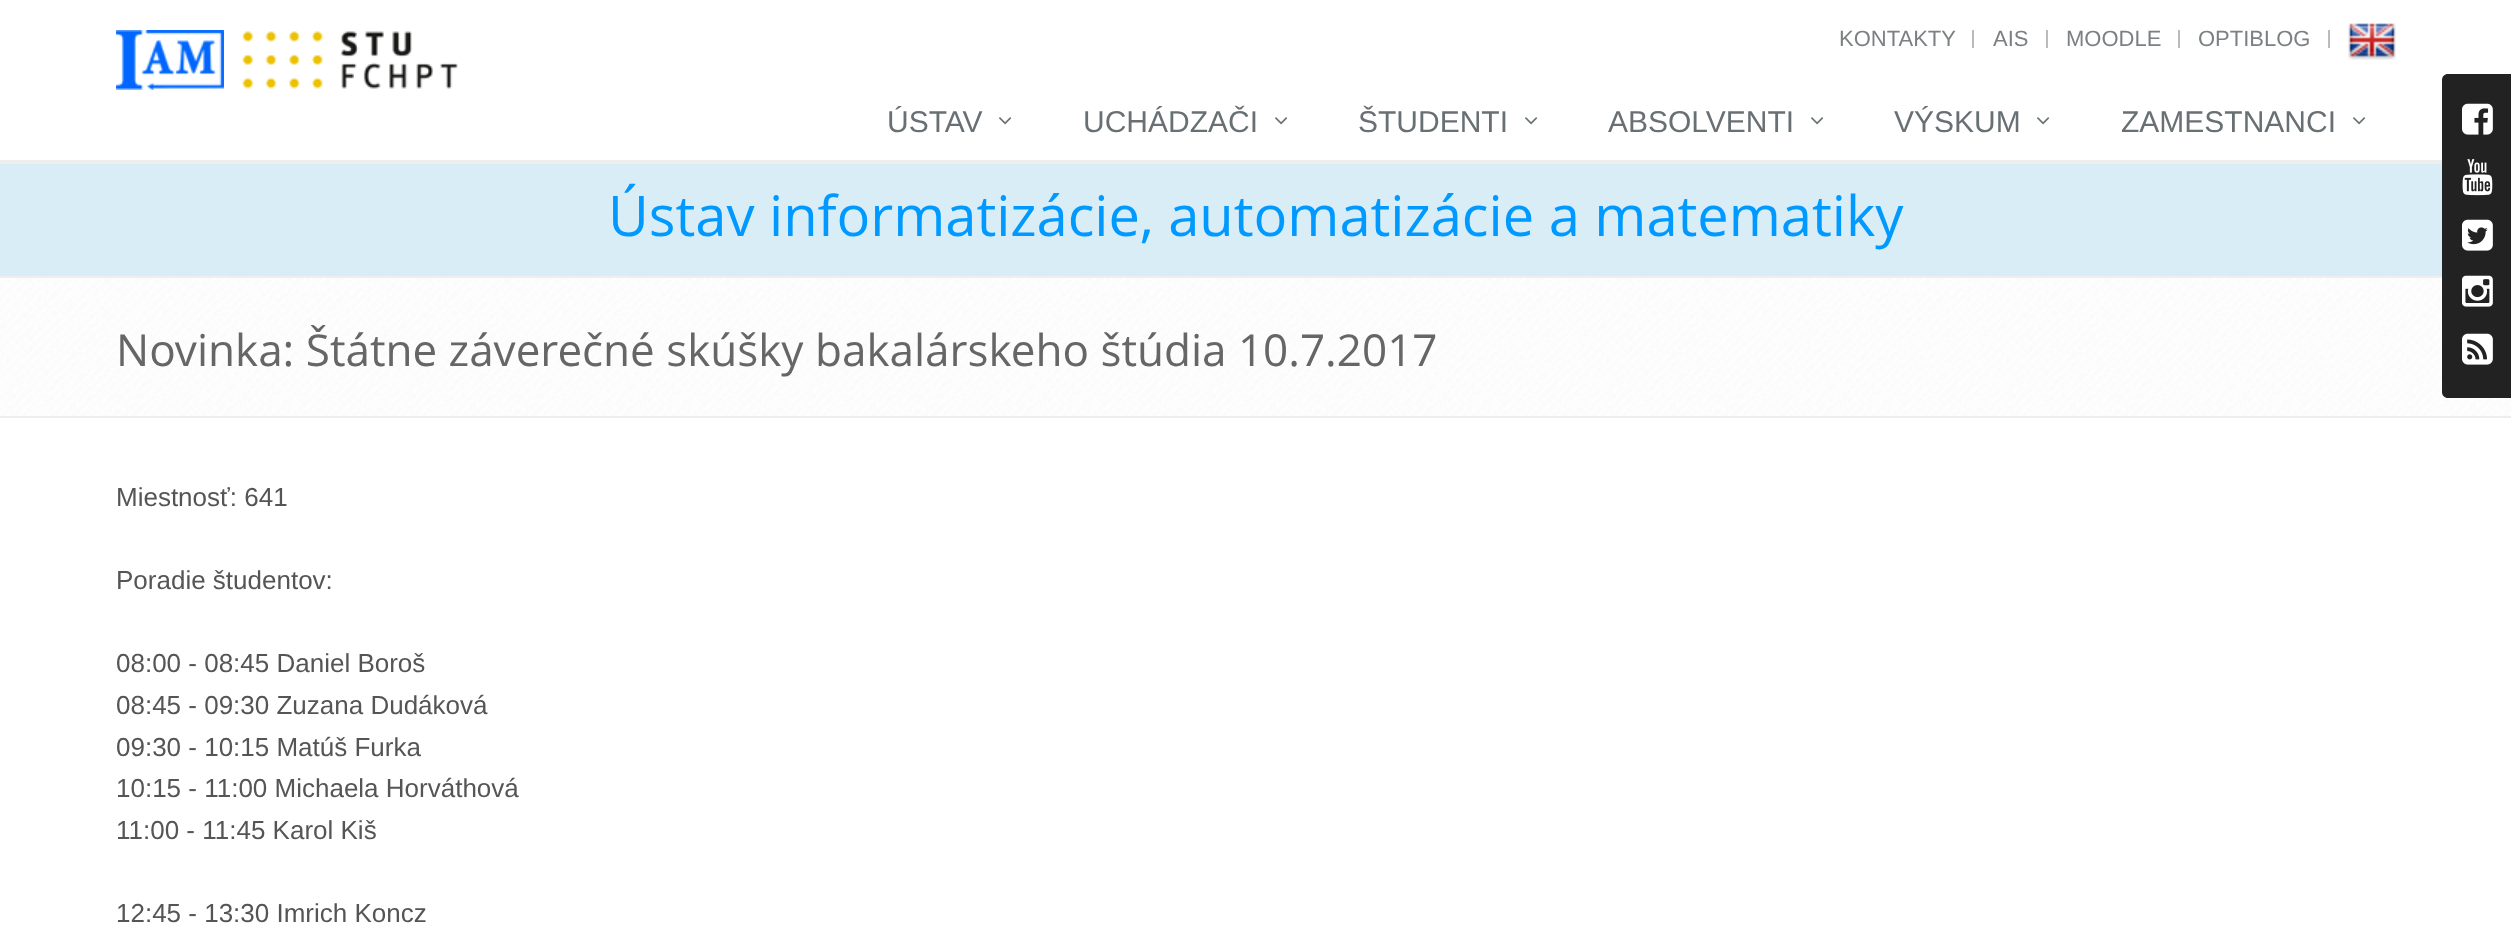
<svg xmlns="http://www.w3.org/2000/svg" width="2511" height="944">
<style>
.a{font:22px Liberation Sans;fill:#7c8082}
.b{font:30px Liberation Sans;fill:#687074}
.c{font:56px Open Sans;fill:#09f}
.d{font:44px Open Sans;fill:#666}
.e{font:26px Liberation Sans;fill:#555}
</style>
<rect width="100%" height="100%" fill="#fff"/>
<path fill="#eee" d="M0 160h2442v4H0z"/>
<image href="1.png" x="116" y="30" width="108" height="60"/>
<image href="2.png" x="242" y="31" width="216" height="58"/>
<path fill="#bbb" d="M1972 30h2v18H1972z"/>
<path fill="#bbb" d="M2046 30h2v18H2046z"/>
<path fill="#bbb" d="M2178 30h2v18H2178z"/>
<path fill="#bbb" d="M2328 30h2v18H2328z"/>
<image href="3.png" x="2348" y="23" width="48" height="37"/>
<image href="4.png" x="999" y="117" width="13" height="8"/>
<image href="4.png" x="1275" y="117" width="13" height="8"/>
<image href="4.png" x="1525" y="117" width="13" height="8"/>
<image href="4.png" x="1811" y="117" width="13" height="8"/>
<image href="4.png" x="2037" y="117" width="13" height="8"/>
<image href="4.png" x="2353" y="117" width="13" height="8"/>
<path fill="#d9edf7" d="M0 164h2442v112H0z"/>
<path fill="#eee" d="M0 276h2442v2H0z"/>
<image href="5.png" x="0" y="278" width="2511" height="138"/>
<path fill="#eee" d="M0 416h2511v2H0z"/>
<path fill="#222" d="M2448 74h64v324h-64c-3.5 0-6-2.5-6-6v-312c0-3.5 2.5-6 6-6z"/>
<image href="6.png" x="2462" y="103" width="31" height="32"/>
<image href="7.png" x="2462" y="159" width="31" height="37"/>
<image href="8.png" x="2462" y="219" width="31" height="32"/>
<image href="9.png" x="2462" y="275" width="31" height="32"/>
<image href="10.png" x="2462" y="333" width="31" height="32"/>
<text class="a" x="1839" y="46">KONTAKTY</text>
<text class="a" x="1993" y="46">AIS</text>
<text class="a" x="2066" y="46">MOODLE</text>
<text class="a" x="2198" y="46">OPTIBLOG</text>
<text class="b" x="887" y="132">ÚSTAV</text>
<text class="b" x="1083" y="132">UCHÁDZAČI</text>
<text class="b" x="1358" y="132">ŠTUDENTI</text>
<text class="b" x="1608" y="132">ABSOLVENTI</text>
<text class="b" x="1894" y="132">VÝSKUM</text>
<text class="b" x="2121" y="132">ZAMESTNANCI</text>
<text class="c" x="608" y="236">Ústav informatizácie, automatizácie a matematiky</text>
<text class="d" x="116" y="366">Novinka: Štátne záverečné skúšky bakalárskeho štúdia 10.7.2017</text>
<text class="e" x="116" y="506">Miestnosť: 641</text>
<text class="e" x="116" y="589">Poradie študentov:</text>
<text class="e" x="116" y="672">08:00 - 08:45 Daniel Boroš</text>
<text class="e" x="116" y="714">08:45 - 09:30 Zuzana Dudáková</text>
<text class="e" x="116" y="756">09:30 - 10:15 Matúš Furka</text>
<text class="e" x="116" y="797">10:15 - 11:00 Michaela Horváthová</text>
<text class="e" x="116" y="839">11:00 - 11:45 Karol Kiš</text>
<text class="e" x="116" y="922">12:45 - 13:30 Imrich Koncz</text>
</svg>
